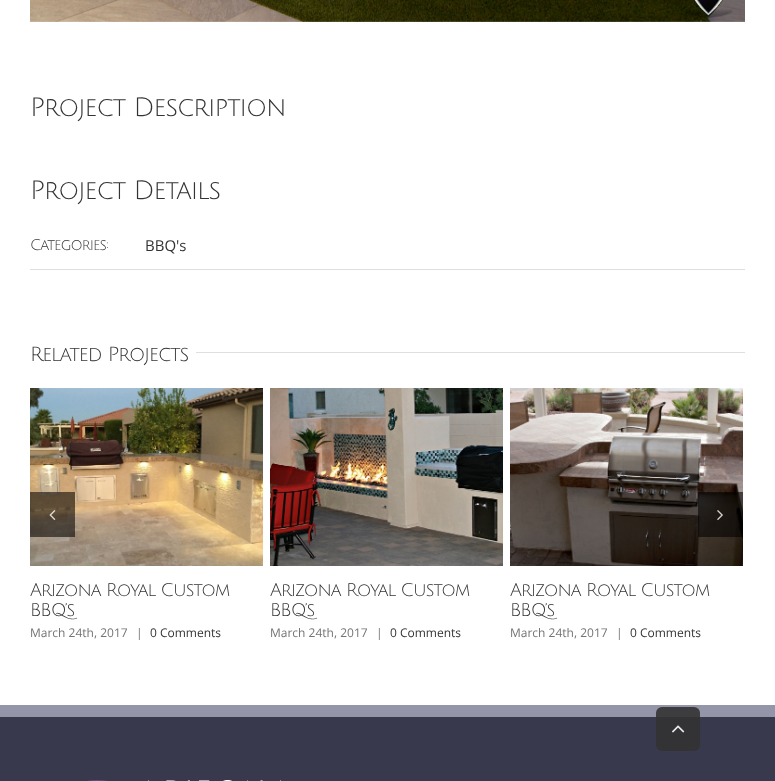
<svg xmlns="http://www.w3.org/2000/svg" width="775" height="781">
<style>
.a{font:25.9px Julius Sans One;letter-spacing:-1px;fill:#333}
.b{font:15px Julius Sans One;letter-spacing:-1px;fill:#333}
.c{font:15px Open Sans;fill:#333}
.d{font:20px Julius Sans One;letter-spacing:-1px;fill:#333}
.e{font:18px Julius Sans One;letter-spacing:-1px;fill:#333}
.f{font:12px Open Sans;fill:#747474}
.g{font:12px Open Sans;fill:#333}
</style>
<rect width="100%" height="100%" fill="#fff"/>
<image href="1.png" x="30" y="0" width="715" height="22"/>
<path fill="#e0dede" d="M30 269h715v1H30z"/>
<path fill="#e0dede" d="M196 352h549v1H196z"/>
<image href="4.png" x="30" y="388" width="233" height="178"/>
<path fill="#0000008f" d="M30 492h45v45H30z"/>
<image href="2.png" x="49" y="510" width="7" height="10"/>
<image href="6.png" x="510" y="388" width="233" height="178"/>
<path fill="#0000008f" d="M698 492h45v45H698z"/>
<image href="3.png" x="717" y="510" width="6" height="10"/>
<image href="5.png" x="270" y="388" width="233" height="178"/>
<path fill="#39394e" d="M0 717h775v64H0z"/>
<path fill="#9595aa" d="M0 705h775v12H0z"/>
<image href="7.png" x="87" y="780" width="194" height="1"/>
<rect fill="#333333e6" x="656" y="707" width="44" height="44" rx="6"/>
<image href="8.png" x="672" y="725" width="13" height="8"/>
<text class="a" x="30" y="116">Project Description</text>
<text class="a" x="30" y="199">Project Details</text>
<text class="b" x="30" y="250">Categories:</text>
<text class="c" x="145" y="251">BBQ's</text>
<text class="d" x="30" y="361">Related Projects</text>
<text class="e" x="30" y="596">Arizona Royal Custom</text>
<text class="e" x="30" y="616">BBQ’s</text>
<text class="f" x="30" y="637">March 24th, 2017</text>
<text class="f" x="136" y="637">|</text>
<text class="g" x="150" y="637">0 Comments</text>
<text class="e" x="270" y="596">Arizona Royal Custom</text>
<text class="e" x="270" y="616">BBQ’s</text>
<text class="f" x="270" y="637">March 24th, 2017</text>
<text class="f" x="376" y="637">|</text>
<text class="g" x="390" y="637">0 Comments</text>
<text class="e" x="510" y="596">Arizona Royal Custom</text>
<text class="e" x="510" y="616">BBQ’s</text>
<text class="f" x="510" y="637">March 24th, 2017</text>
<text class="f" x="616" y="637">|</text>
<text class="g" x="630" y="637">0 Comments</text>
</svg>
